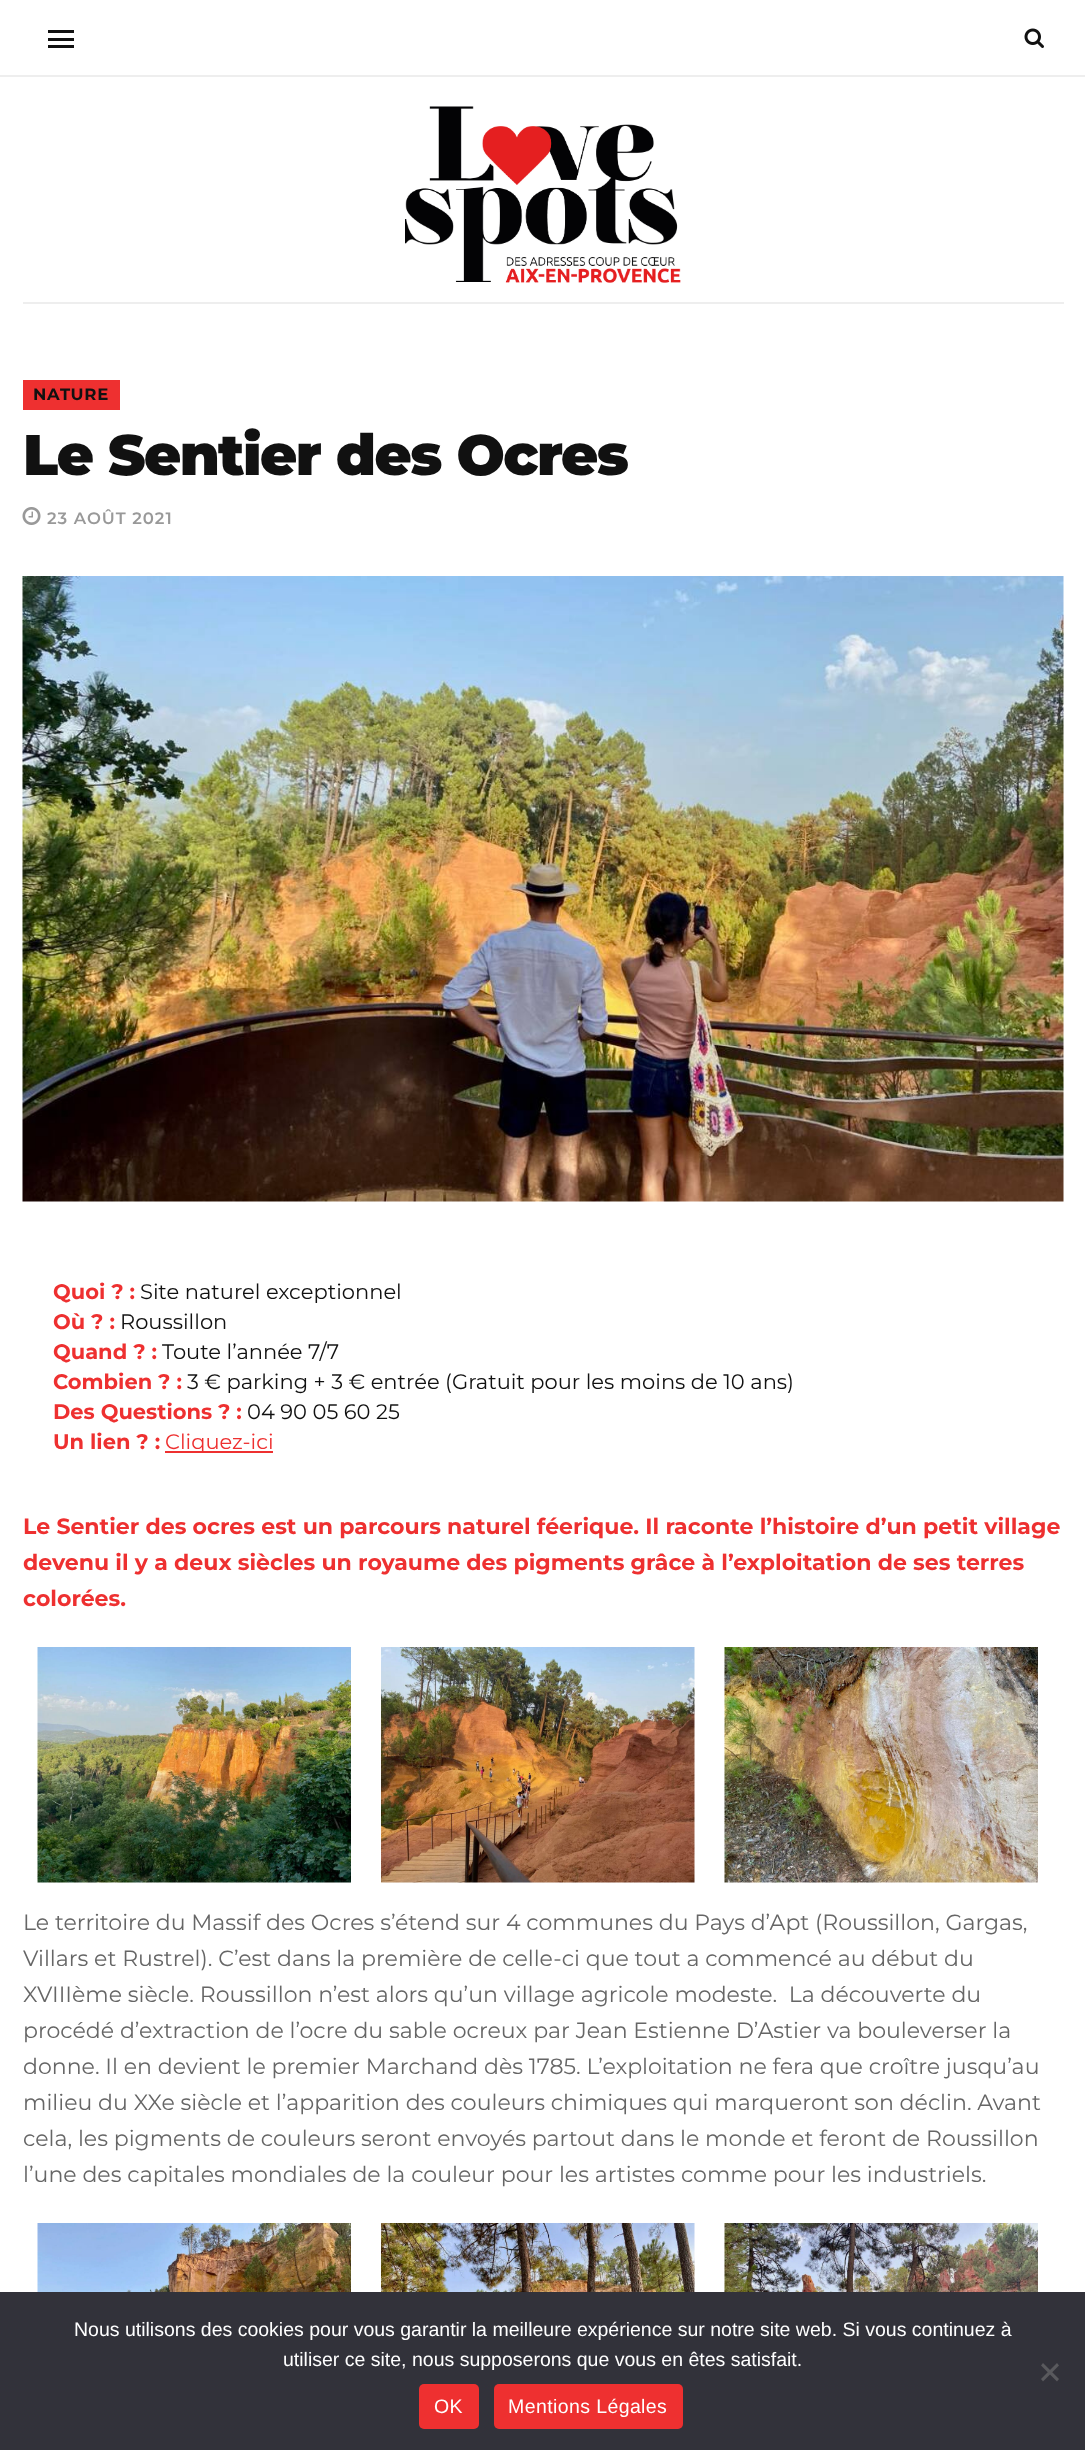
<svg xmlns="http://www.w3.org/2000/svg" width="1085" height="2450">
<style>
.a{font:bold 16.5px Montserrat;letter-spacing:0.75px;fill:#111}
.b{font:900 57px Montserrat;letter-spacing:-1.5px;fill:#111}
.c{font:600 16.5px Montserrat;letter-spacing:1px;fill:#999}
.d{font:bold 21px Montserrat;fill:#ee3030}
.e{font:21px Montserrat;fill:#111}
.f{font:21px Montserrat;fill:#ee3030}
.g{font:bold 22.05px Montserrat;fill:#ee3030}
.h{font:22.05px Montserrat;fill:#666}
.i{font:19.5px Liberation Sans;fill:#fff}
.j{font:19.5px Liberation Sans;letter-spacing:0.4px;fill:#fff}
</style>
<rect width="100%" height="100%" fill="#fff"/>
<path fill="#eee" d="M0 75h1085v2H0z"/>
<path fill="#111" d="M48 38h26v3H48z"/>
<path fill="#111" d="M48 30h26v3H48z"/>
<path fill="#111" d="M48 45h26v3H48z"/>
<image href="1.png" x="1024" y="28" width="20" height="20"/>
<image href="2.png" x="405" y="106" width="276" height="177"/>
<path fill="#eee" d="M23 302h1041v2H23z"/>
<path fill="#ee3030" d="M23 380h97v30H23z"/>
<image href="3.png" x="22" y="507" width="19" height="18"/>
<image href="4.png" x="22" y="576" width="1042" height="626"/>
<path fill="#ee3030" d="M165 1451h108v2H165z"/>
<image href="5.png" x="37" y="1647" width="314" height="236"/>
<image href="6.png" x="381" y="1647" width="314" height="236"/>
<image href="7.png" x="724" y="1647" width="314" height="236"/>
<image href="8.png" x="37" y="2223" width="314" height="69"/>
<image href="9.png" x="381" y="2223" width="314" height="69"/>
<image href="10.png" x="724" y="2223" width="314" height="69"/>
<path fill="#32323a" d="M0 2292h1085v158H0z"/>
<path fill="#59595d" d="M1057 2363l2 2.5l-16 16l-2-2.5z"/>
<path fill="#59595d" d="M1041 2365.5l2-2.5l16 16l-2 2.5z"/>
<rect fill="#ee3030" x="419" y="2384" width="60" height="45" rx="5"/>
<rect fill="#ee3030" x="494" y="2384" width="189" height="45" rx="5"/>
<text class="a" x="33" y="400">NATURE</text>
<text class="b" x="23" y="475">Le Sentier des Ocres</text>
<text class="c" x="47" y="524">23 AOÛT 2021</text>
<text class="d" x="53" y="1299">Quoi ? :</text>
<text class="e" x="140" y="1299">Site naturel exceptionnel</text>
<text class="d" x="53" y="1329">Où ? :</text>
<text class="e" x="120" y="1329">Roussillon</text>
<text class="d" x="53" y="1359">Quand ? :</text>
<text class="e" x="162" y="1359">Toute l’année 7/7</text>
<text class="d" x="53" y="1389">Combien ? :</text>
<text class="e" x="187" y="1389">3 € parking + 3 € entrée (Gratuit pour les moins de 10 ans)</text>
<text class="d" x="53" y="1419">Des Questions ? :</text>
<text class="e" x="247" y="1419">04 90 05 60 25</text>
<text class="d" x="53" y="1449">Un lien ? :</text>
<text class="f" x="165" y="1449">Cliquez-ici</text>
<text class="g" x="23" y="1534">Le Sentier des ocres est un parcours naturel féerique. Il raconte l’histoire d’un petit village</text>
<text class="g" x="23" y="1570">devenu il y a deux siècles un royaume des pigments grâce à l’exploitation de ses terres</text>
<text class="g" x="23" y="1606">colorées.</text>
<text class="h" x="23" y="1930">Le territoire du Massif des Ocres s’étend sur 4 communes du Pays d’Apt (Roussillon, Gargas,</text>
<text class="h" x="23" y="1966">Villars et Rustrel). C’est dans la première de celle-ci que tout a commencé au début du</text>
<text class="h" xml:space="preserve" x="23" y="2002">XVIIIème siècle. Roussillon n’est alors qu’un village agricole modeste.  La découverte du</text>
<text class="h" x="23" y="2038">procédé d’extraction de l’ocre du sable ocreux par Jean Estienne D’Astier va bouleverser la</text>
<text class="h" x="23" y="2074">donne. Il en devient le premier Marchand dès 1785. L’exploitation ne fera que croître jusqu’au</text>
<text class="h" x="23" y="2110">milieu du XXe siècle et l’apparition des couleurs chimiques qui marqueront son déclin. Avant</text>
<text class="h" x="23" y="2146">cela, les pigments de couleurs seront envoyés partout dans le monde et feront de Roussillon</text>
<text class="h" x="23" y="2182">l’une des capitales mondiales de la couleur pour les artistes comme pour les industriels.</text>
<text class="i" x="74" y="2336">Nous utilisons des cookies pour vous garantir la meilleure expérience sur notre site web. Si vous continuez à</text>
<text class="i" x="283" y="2366">utiliser ce site, nous supposerons que vous en êtes satisfait.</text>
<text class="j" x="434" y="2413">OK</text>
<text class="j" x="508" y="2413">Mentions Légales</text>
</svg>
